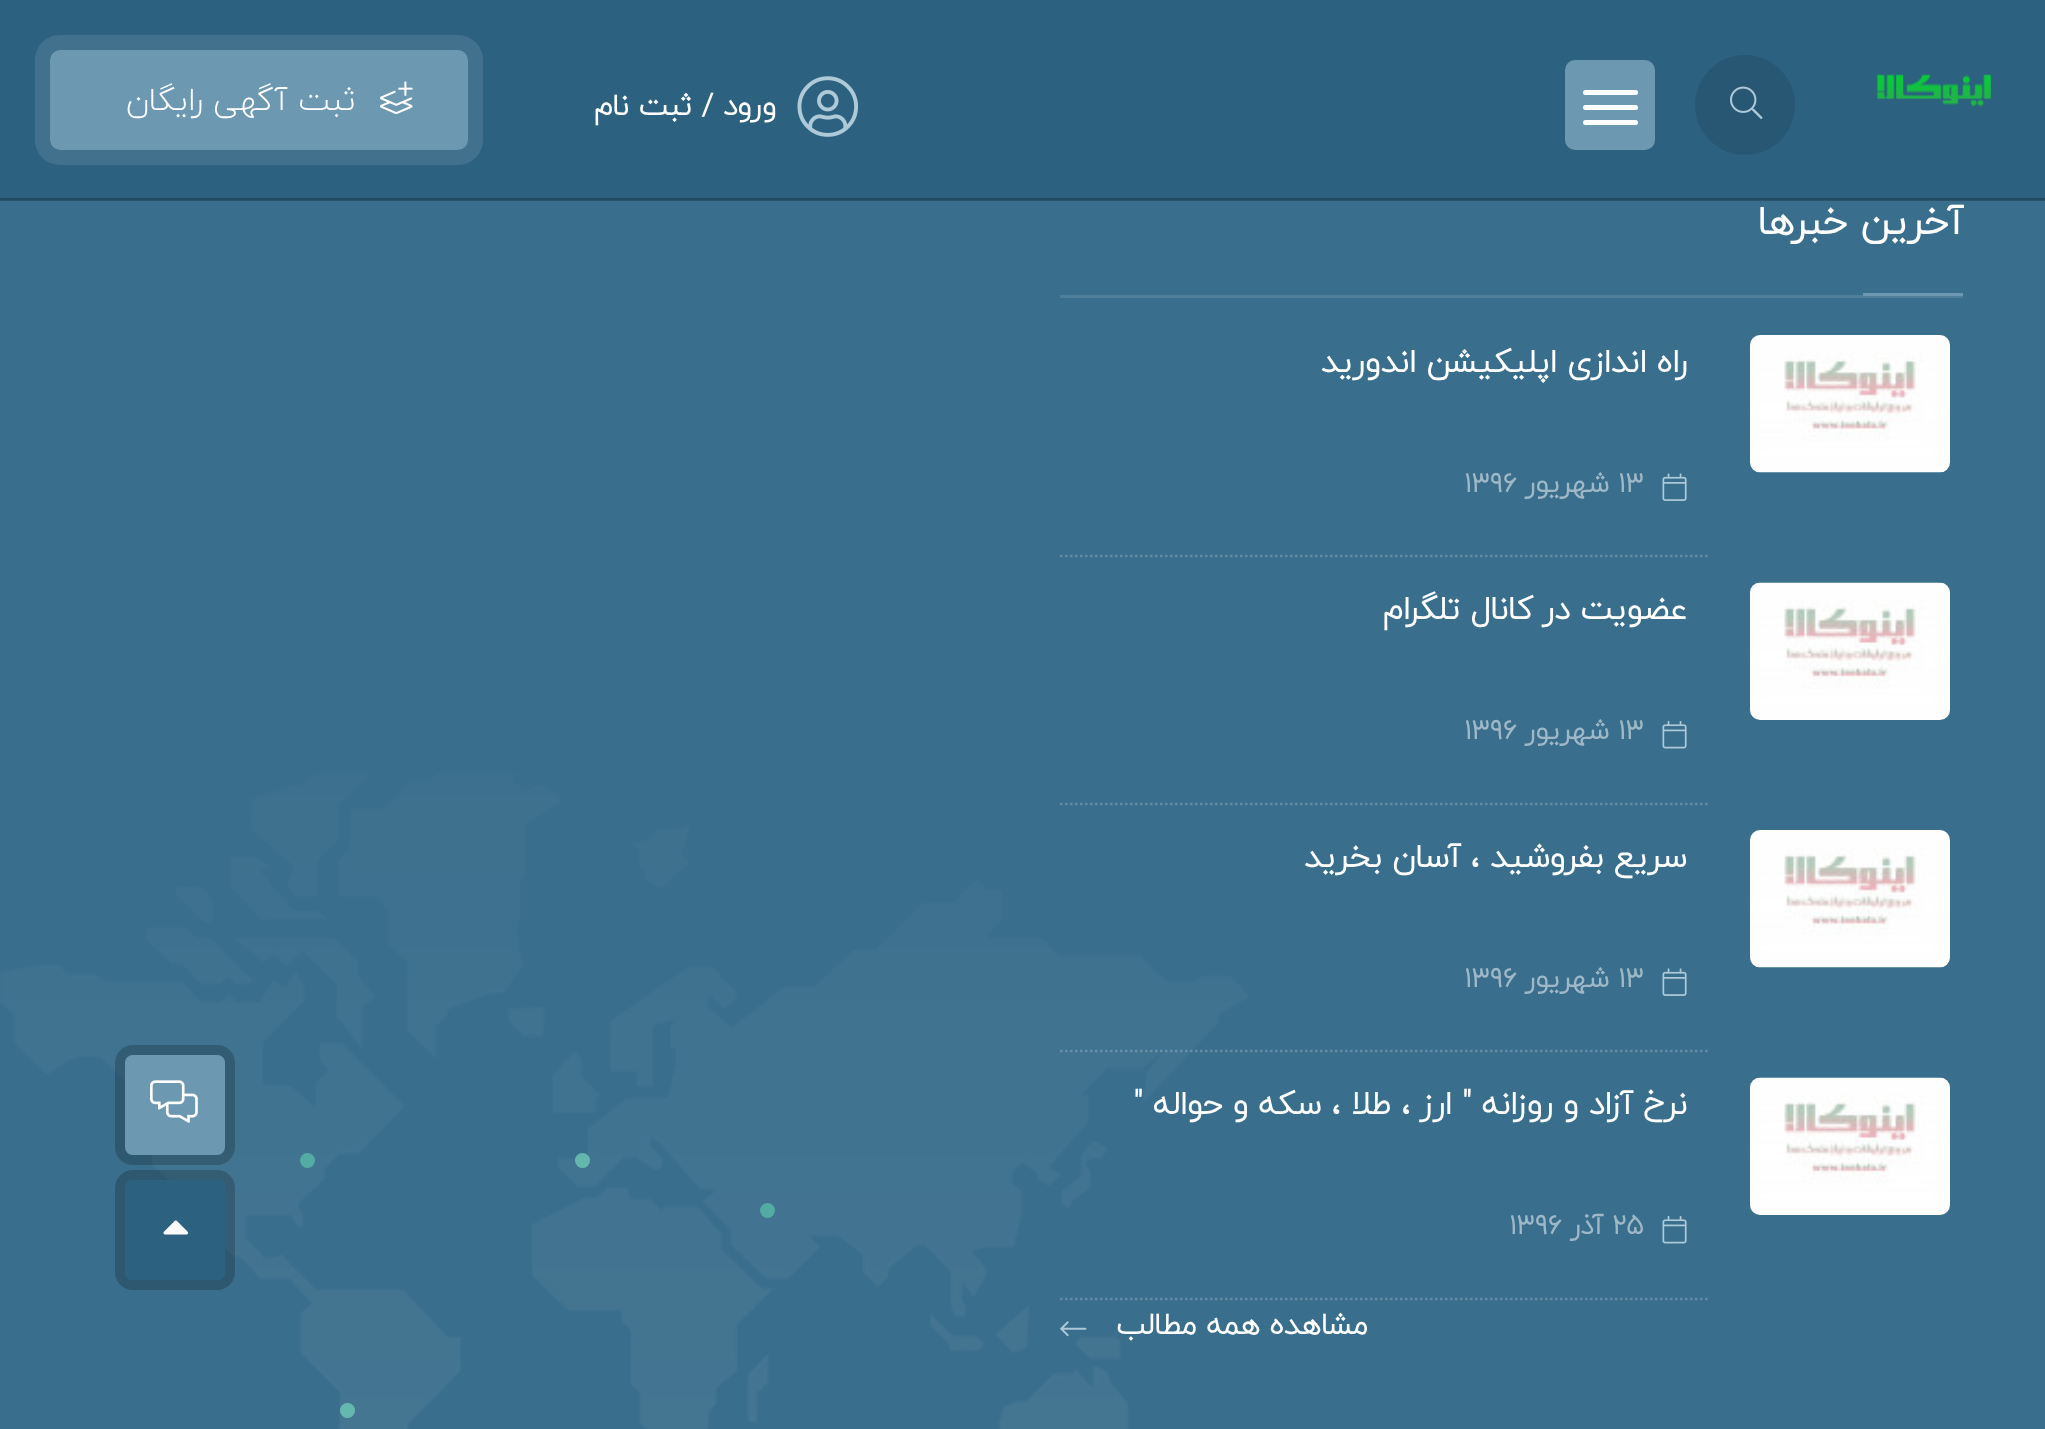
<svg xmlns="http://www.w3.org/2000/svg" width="2045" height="1429">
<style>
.a{font:bold 30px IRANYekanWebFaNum;direction:rtl;fill:#fff}
.b{font:300 32.5px IRANYekanWebFaNum;direction:rtl;fill:#fff}
.c{font:bold 40px IRANYekanWebFaNum;direction:rtl;fill:#fff}
.d{font:bold 32.5px IRANYekanWebFaNum;direction:rtl;fill:#fff}
.e{font:bold 27.5px IRANYekanWebFaNum;fill:#9eb8c7}
.f{font:bold 27.5px IRANYekanWebFaNum;direction:rtl;fill:#9eb8c7}
</style>
<rect width="100%" height="100%" fill="#396e8c"/>
<path fill="#2c6180" d="M0 0h2045v198H0z"/>
<path fill="#214960" d="M0 198h2045v2H0z"/>
<image href="1.png" x="1876" y="74" width="116" height="33"/>
<circle fill="#285773" cx="1745" cy="105" r="50"/>
<image href="2.png" x="1730" y="86" width="33" height="33"/>
<rect fill="#6c98b2" x="1565" y="60" width="90" height="90" rx="10"/>
<rect fill="#fff" x="1583" y="90" width="55" height="5" rx="2.5"/>
<rect fill="#fff" x="1583" y="105" width="55" height="5" rx="2.5"/>
<rect fill="#fff" x="1583" y="120" width="55" height="5" rx="2.5"/>
<image href="3.png" x="797" y="76" width="62" height="61"/>
<rect fill="none" stroke="#41718d" stroke-width="15" x="42.5" y="42.5" width="433" height="115" rx="17.5"/>
<rect fill="#6c98b2" x="50" y="50" width="418" height="100" rx="10"/>
<image href="4.png" x="380" y="81" width="33" height="33"/>
<path fill="#2b5369" d="M0 200h2045v1H0z"/>
<path fill="#4f7e99" d="M1060 295h903v3H1060z"/>
<path fill="#6c98b2" d="M1863 293h100v3H1863z"/>
<image href="5.png" x="1750" y="335" width="200" height="138"/>
<image href="6.png" x="1662" y="473" width="25" height="28"/>
<path fill="none" stroke="#638ca4" stroke-width="2.5" stroke-dasharray="2.5 2.5" d="M1060 556h647.5"/>
<image href="7.png" x="1750" y="582" width="200" height="138"/>
<image href="8.png" x="1662" y="720" width="25" height="29"/>
<image href="10.png" x="0" y="773" width="1248" height="656"/>
<path fill="none" stroke="#638ca4" stroke-width="2.5" stroke-dasharray="2.5 2.5" d="M1060 804h647.5"/>
<image href="5.png" x="1750" y="830" width="200" height="138"/>
<image href="6.png" x="1662" y="968" width="25" height="28"/>
<path fill="none" stroke="#ffffff36" stroke-width="2.5" stroke-dasharray="2.5 2.5" d="M1060 1051h647.5"/>
<image href="7.png" x="1750" y="1077" width="200" height="138"/>
<image href="8.png" x="1662" y="1215" width="25" height="29"/>
<path fill="none" stroke="#638ca4" stroke-width="2.5" stroke-dasharray="2.5 2.5" d="M1060 1299h647.5"/>
<image href="9.png" x="1060" y="1321" width="27" height="16"/>
<circle fill="#ffffff3d" cx="582.5" cy="1160.5" r="7.5"/>
<circle fill="#5ecfb199" cx="582.5" cy="1160.5" r="7.5"/>
<circle fill="#53aba4" cx="307.5" cy="1160.5" r="7.5"/>
<circle fill="#53aba4" cx="767.5" cy="1210.5" r="7.5"/>
<circle fill="#ffffff3d" cx="347.5" cy="1410.5" r="7.5"/>
<circle fill="#5ecfb199" cx="347.5" cy="1410.5" r="7.5"/>
<rect fill="none" stroke="#00000033" stroke-width="10" x="120" y="1050" width="110" height="110" rx="13"/>
<rect fill="#6c98b2" x="125" y="1055" width="100" height="100" rx="8"/>
<image href="11.png" x="150" y="1080" width="48" height="43"/>
<rect fill="none" stroke="#00000033" stroke-width="10" x="120" y="1175" width="110" height="110" rx="13"/>
<rect fill="#2c6180" x="125" y="1180" width="100" height="100" rx="8"/>
<image href="12.png" x="163" y="1220" width="26" height="15"/>
<text class="a" x="776" y="115">ورود / ثبت نام</text>
<text class="b" x="356" y="110">ثبت آگهی رایگان</text>
<text class="c" x="1963" y="234">آخرین خبرها</text>
<text class="d" x="1687" y="372">راه اندازی اپلیکیشن اندورید</text>
<text class="e" x="1618" y="492">۱۳</text>
<text class="f" x="1609" y="492">شهریور</text>
<text class="e" x="1464" y="492">۱۳۹۶</text>
<text class="d" x="1687" y="619">عضویت در کانال تلگرام</text>
<text class="e" x="1618" y="739">۱۳</text>
<text class="f" x="1609" y="739">شهریور</text>
<text class="e" x="1464" y="739">۱۳۹۶</text>
<text class="d" x="1687" y="867">سریع بفروشید ، آسان بخرید</text>
<text class="e" x="1618" y="987">۱۳</text>
<text class="f" x="1609" y="987">شهریور</text>
<text class="e" x="1464" y="987">۱۳۹۶</text>
<text class="d" x="1687" y="1114">نرخ آزاد و روزانه " ارز ، طلا ، سکه و حواله "</text>
<text class="e" x="1612" y="1234">۲۵</text>
<text class="f" x="1603" y="1234">آذر</text>
<text class="e" x="1509" y="1234">۱۳۹۶</text>
<text class="a" x="1368" y="1334">مشاهده همه مطالب</text>
</svg>
